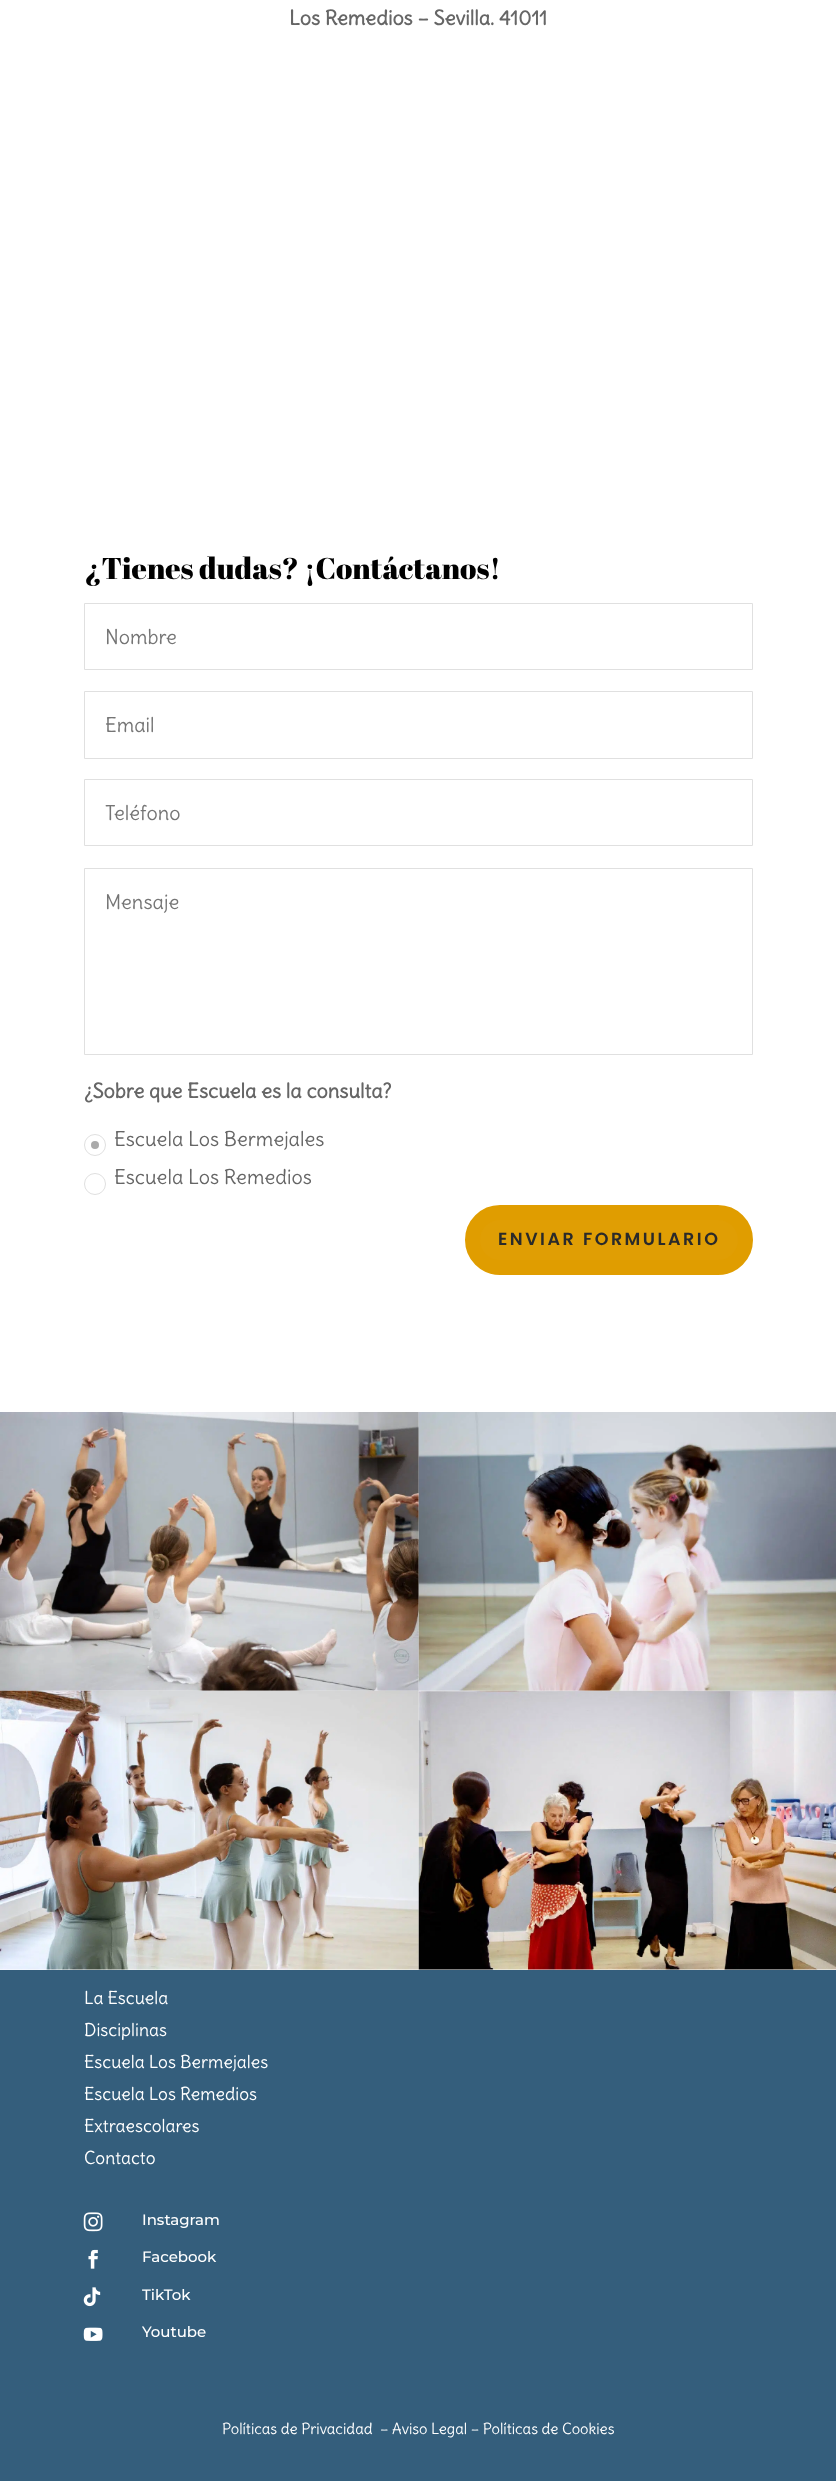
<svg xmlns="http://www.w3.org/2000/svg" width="836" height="2481">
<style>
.a{font:bold 20px Delius;fill:#666}
.b{font:30px Abril Fatface;fill:#000}
.c{font:20px Delius;fill:#757575}
.d{font:20px Delius;fill:#666}
.e{font:600 17.5px Poppins;letter-spacing:2.5px;fill:#2a2a2a}
.f{font:17.5px Delius;fill:#fff}
.g{font:500 15px Montserrat;fill:#fff}
.h{font:15px Delius;fill:#fff}
</style>
<rect width="100%" height="100%" fill="#fff"/>
<path fill="none" stroke="#e0e0e0" d="M84.5 603.5h668v66H84.5z"/>
<path fill="none" stroke="#e0e0e0" d="M84.5 691.5h668v67H84.5z"/>
<path fill="none" stroke="#e0e0e0" d="M84.5 779.5h668v66H84.5z"/>
<path fill="none" stroke="#e0e0e0" d="M84.5 868.5h668v186H84.5z"/>
<circle fill="none" stroke="#e0e0e0" cx="95" cy="1145" r="10.5"/>
<circle fill="#aaa" cx="95" cy="1145" r="4"/>
<circle fill="none" stroke="#e0e0e0" cx="95" cy="1184" r="10.5"/>
<rect fill="#e09e04" stroke="#e09d00" stroke-width="15" x="472.5" y="1212.5" width="273" height="55" rx="27.5"/>
<image href="1.png" x="0" y="1412" width="419" height="279"/>
<image href="2.png" x="418" y="1412" width="418" height="279"/>
<image href="3.png" x="0" y="1690" width="419" height="280"/>
<image href="4.png" x="418" y="1690" width="418" height="280"/>
<path fill="#345e7c" d="M0 1970h836v511H0z"/>
<image href="5.png" x="83" y="2212" width="20" height="20"/>
<image href="6.png" x="88" y="2249" width="10" height="20"/>
<image href="7.png" x="83" y="2287" width="18" height="20"/>
<image href="8.png" x="83" y="2327" width="20" height="14"/>
<text class="a" x="289" y="25">Los Remedios – Sevilla. 41011</text>
<text class="b" x="84" y="579">¿Tienes dudas? ¡Contáctanos!</text>
<text class="c" x="105" y="644">Nombre</text>
<text class="c" x="105" y="732">Email</text>
<text class="c" x="105" y="820">Teléfono</text>
<text class="c" x="105" y="909">Mensaje</text>
<text class="a" x="84" y="1098">¿Sobre que Escuela es la consulta?</text>
<text class="d" x="114" y="1146">Escuela Los Bermejales</text>
<text class="d" x="114" y="1184">Escuela Los Remedios</text>
<text class="e" x="498" y="1245">ENVIAR FORMULARIO</text>
<text class="f" x="84" y="2004">La Escuela</text>
<text class="f" x="84" y="2036">Disciplinas</text>
<text class="f" x="84" y="2068">Escuela Los Bermejales</text>
<text class="f" x="84" y="2100">Escuela Los Remedios</text>
<text class="f" x="84" y="2132">Extraescolares</text>
<text class="f" x="84" y="2164">Contacto</text>
<text class="g" x="142" y="2225">Instagram</text>
<text class="g" x="142" y="2262">Facebook</text>
<text class="g" x="142" y="2300">TikTok</text>
<text class="g" x="142" y="2337">Youtube</text>
<text class="h" x="222" y="2434">Políticas de Privacidad</text>
<text class="h" x="380" y="2434">– Aviso Legal – Políticas de Cookies</text>
</svg>
